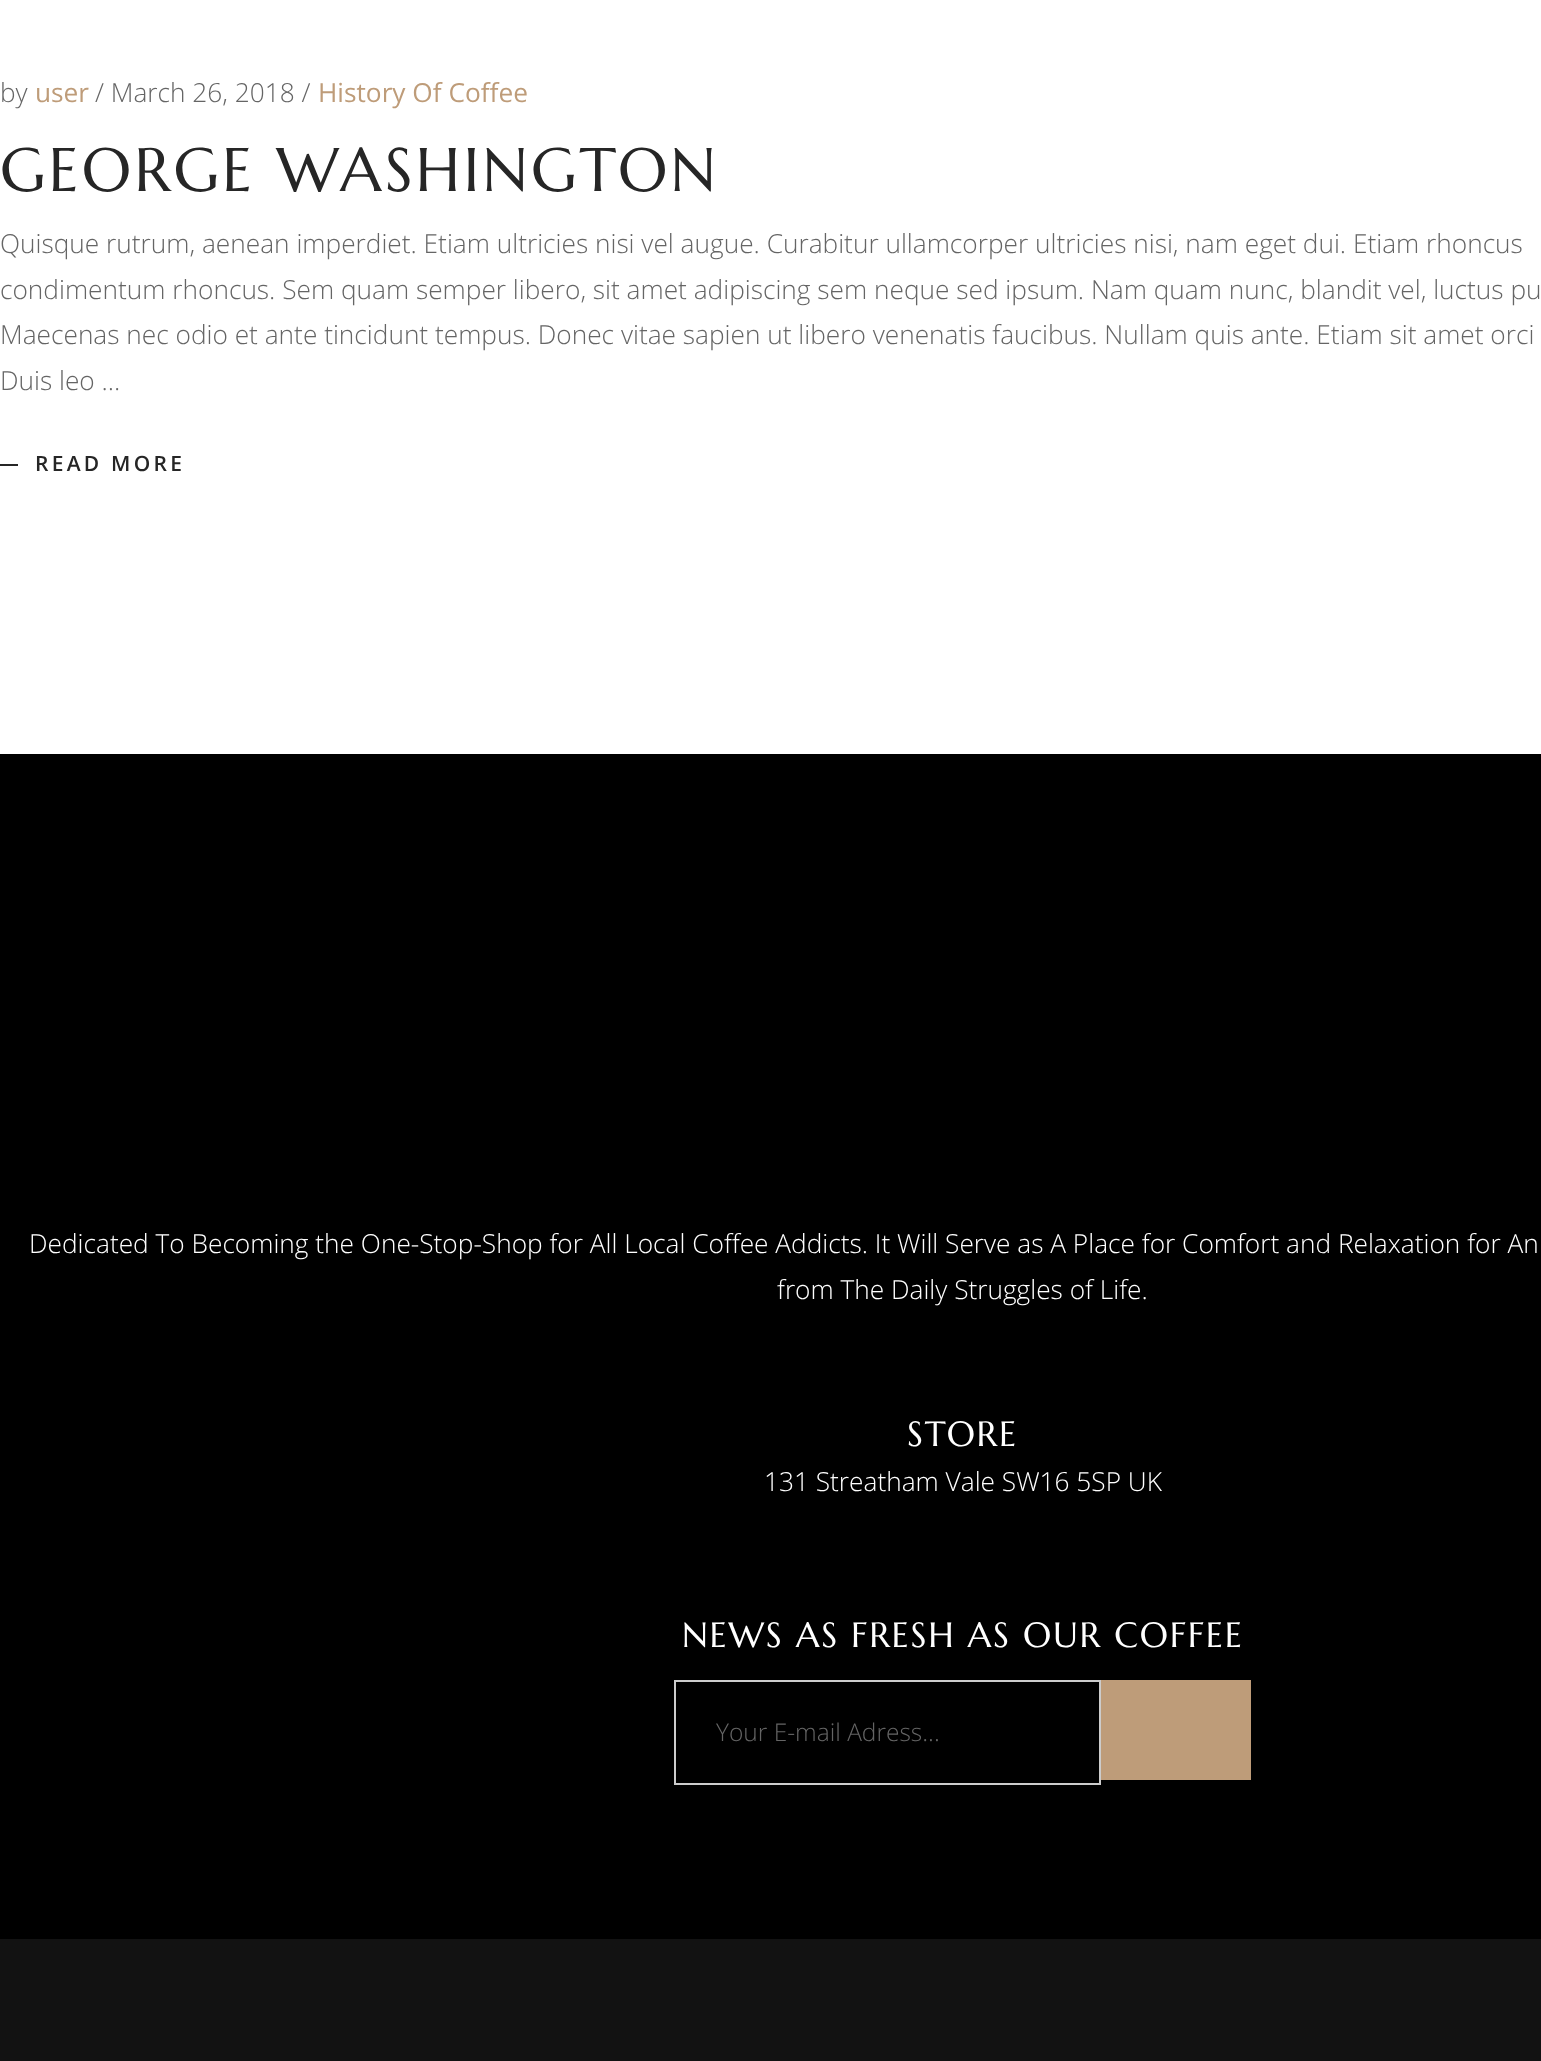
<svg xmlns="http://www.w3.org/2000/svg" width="1541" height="2061">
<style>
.a{font:300 26.25px Open Sans;fill:#656565}
.b{font:26.25px Open Sans;fill:#be9c79}
.c{font:61.25px Marcellus;letter-spacing:3.1px;fill:#262626}
.d{font:600 21px Open Sans;letter-spacing:3.25px;fill:#262626}
.e{font:300 26.25px Open Sans;fill:#fff}
.f{font:35px Marcellus;letter-spacing:1.75px;fill:#fff}
.g{font:300 24.5px Open Sans;fill:#656565}
</style>
<rect width="100%" height="100%" fill="#fff"/>
<path fill="#262626" d="M0 464h18v2H0z"/>
<path fill="#000" d="M0 754h1541v1185H0z"/>
<path fill="none" stroke="#ccc" stroke-width="2" d="M675 1681h425v103H675z"/>
<path fill="#be9c79" d="M1101 1680h150v100H1101z"/>
<path fill="#121212" d="M0 1939h1541v122H0z"/>
<text class="a" x="0" y="102">by</text>
<text class="b" x="35" y="102">user</text>
<text class="a" x="95" y="102">/ March 26, 2018 /</text>
<text class="b" x="318" y="102">History Of Coffee</text>
<text class="c" x="0" y="191">GEORGE WASHINGTON</text>
<text class="a" x="0" y="253">Quisque rutrum, aenean imperdiet. Etiam ultricies nisi vel augue. Curabitur ullamcorper ultricies nisi, nam eget dui. Etiam rhoncus</text>
<text class="a" x="0" y="299">condimentum rhoncus. Sem quam semper libero, sit amet adipiscing sem neque sed ipsum. Nam quam nunc, blandit vel, luctus pu</text>
<text class="a" x="0" y="344">Maecenas nec odio et ante tincidunt tempus. Donec vitae sapien ut libero venenatis faucibus. Nullam quis ante. Etiam sit amet orci</text>
<text class="a" x="0" y="390">Duis leo ...</text>
<text class="d" x="35" y="471">READ MORE</text>
<text class="e" x="29" y="1253">Dedicated To Becoming the One-Stop-Shop for All Local Coffee Addicts. It Will Serve as A Place for Comfort and Relaxation for An</text>
<text class="e" x="777" y="1299">from The Daily Struggles of Life.</text>
<text class="f" x="907" y="1446">STORE</text>
<text class="e" x="764" y="1491">131 Streatham Vale SW16 5SP UK</text>
<text class="f" x="682" y="1647">NEWS AS FRESH AS OUR COFFEE</text>
<text class="g" x="716" y="1741">Your E-mail Adress...</text>
</svg>
